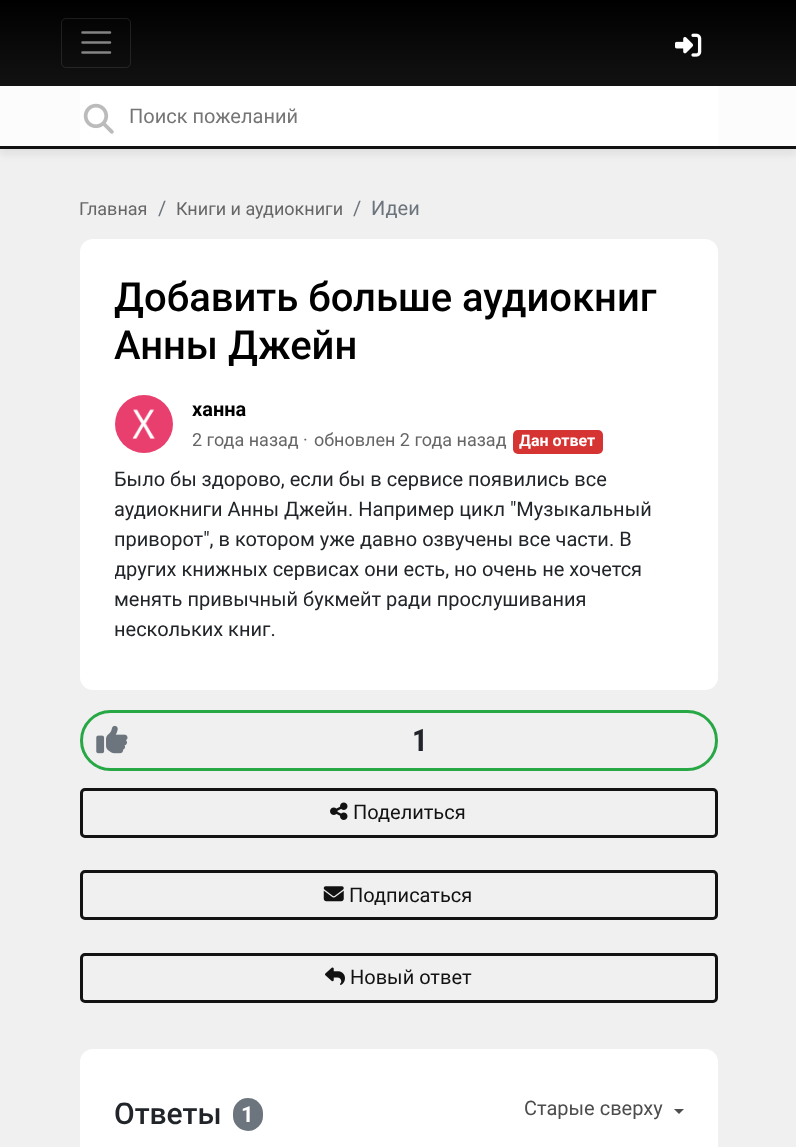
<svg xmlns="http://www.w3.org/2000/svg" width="796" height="1147">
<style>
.a{font:20px Roboto;fill:#757575}
.b{font:18px Roboto;fill:#666}
.c{font:20px Roboto;fill:#6c757d}
.d{font:500 40px Roboto;fill:#000}
.e{font:bold 20px Roboto;fill:#000}
.f{font:bold 16px Roboto;fill:#fff}
.g{font:20px Roboto;fill:#212529}
.h{font:bold 31px Roboto Condensed;fill:#212529}
.i{font:20px Roboto;fill:#121212}
.j{font:500 30px Roboto;fill:#212529}
.k{font:bold 22px Roboto;fill:#fff}
.l{font:20px Roboto;fill:#4d4d4d}
</style>
<defs>
<linearGradient id="g1" gradientUnits="userSpaceOnUse" x1="398" y1="0" x2="398" y2="86"><stop offset="0" stop-color="#000"/><stop offset="1" stop-color="#121212"/></linearGradient>
<clipPath id="clip1"><path d="M115 465h568v180H115z"/></clipPath>
</defs>
<rect width="100%" height="100%" fill="#f0f0f0"/>
<path fill="url(#g1)" d="M0 0h796v86H0z"/>
<rect fill="none" stroke="#ffffff1a" x="61.5" y="18.5" width="69" height="49" rx="4.5"/>
<path fill="none" stroke="#ffffff80" stroke-width="2.5" stroke-linecap="round" d="M82.5 32.5h27.5m-27.5 10h27.5m-27.5 10h27.5"/>
<image href="1.png" x="675" y="33" width="27" height="24"/>
<path fill="#6464641a" filter="blur(3px)" d="M0 93h796v62H0z"/>
<path fill="#fcfcfc" d="M0 86h796v60H0z"/>
<path fill="#121212" d="M0 146h796v3H0z"/>
<path fill="#fff" d="M80 86h638v60H80z"/>
<image href="2.png" x="83" y="103" width="31" height="31"/>
<rect fill="#fff" x="80" y="239" width="638" height="451" rx="13"/>
<circle fill="#e83f6e" cx="144" cy="424" r="29"/>
<image href="3.png" x="132" y="409" width="23" height="30"/>
<rect fill="#d63333" x="513" y="430" width="90" height="24" rx="5"/>
<rect fill="none" stroke="#28a745" stroke-width="3" x="81.5" y="711.5" width="635" height="58" rx="29"/>
<image href="4.png" x="96" y="725" width="32" height="29"/>
<rect fill="none" stroke="#121212" stroke-width="3" x="81.5" y="789.5" width="635" height="47" rx="3.5"/>
<image href="5.png" x="330" y="802" width="18" height="18"/>
<rect fill="none" stroke="#121212" stroke-width="3" x="81.5" y="871.5" width="635" height="47" rx="3.5"/>
<image href="6.png" x="323" y="886" width="21" height="16"/>
<rect fill="none" stroke="#121212" stroke-width="3" x="81.5" y="954.5" width="635" height="47" rx="3.5"/>
<image href="7.png" x="325" y="967" width="20" height="18"/>
<rect fill="#fff" x="80" y="1049" width="638" height="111" rx="13"/>
<rect fill="#6c757d" x="233" y="1098" width="30" height="33" rx="15"/>
<path fill="#4d4d4d" d="M674 1109h10l-5 5z"/>
<text class="a" x="129" y="123">Поиск пожеланий</text>
<text class="b" x="79" y="215">Главная</text>
<text class="c" x="158" y="215">/</text>
<text class="b" x="176" y="215">Книги и аудиокниги</text>
<text class="c" x="353" y="215">/</text>
<text class="c" x="371" y="215">Идеи</text>
<text class="d" x="114" y="311">Добавить больше аудиокниг</text>
<text class="d" x="114" y="359">Анны Джейн</text>
<text class="e" x="192" y="416">ханна</text>
<text class="b" x="192" y="446">2 года назад</text>
<text class="b" x="303" y="446">·</text>
<text class="b" x="314" y="446">обновлен 2 года назад</text>
<text class="f" x="519" y="446">Дан ответ</text>
<text class="g" x="114" y="486">Было бы здорово, если бы в сервисе появились все</text>
<text class="g" x="114" y="516">аудиокниги Анны Джейн. Например цикл "Музыкальный</text>
<text class="g" x="114" y="546">приворот", в котором уже давно озвучены все части. В</text>
<g clip-path="url(#clip1)">
<text class="g" x="114" y="576">других книжных сервисах они есть, но очень не хочется</text>
</g>
<text class="g" x="114" y="606">менять привычный букмейт ради прослушивания</text>
<text class="g" x="114" y="636">нескольких книг.</text>
<text class="h" x="412" y="751">1</text>
<text class="i" x="353" y="819">Поделиться</text>
<text class="i" x="349" y="902">Подписаться</text>
<text class="i" x="350" y="984">Новый ответ</text>
<text class="j" x="114" y="1124">Ответы</text>
<text class="k" x="241" y="1122">1</text>
<text class="l" x="524" y="1115">Старые сверху</text>
</svg>
